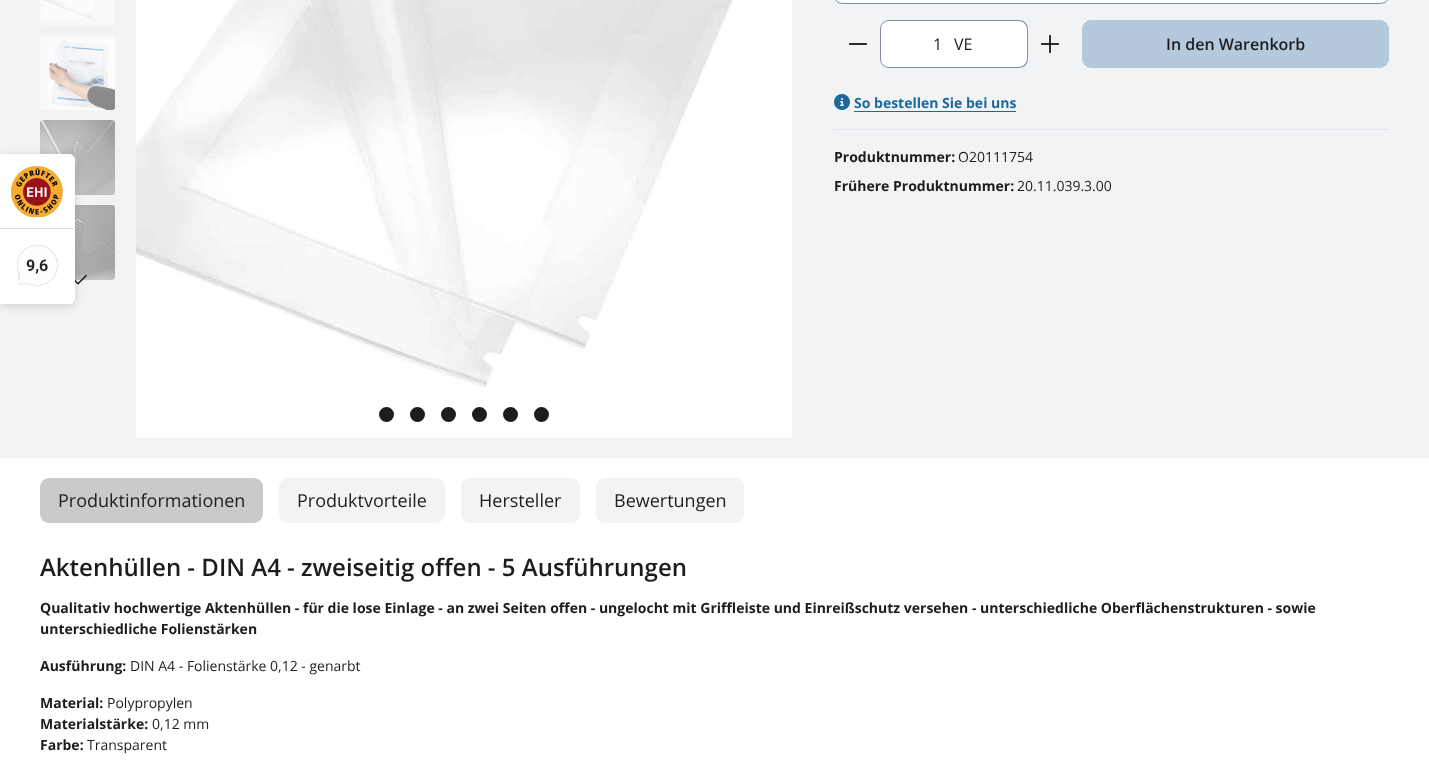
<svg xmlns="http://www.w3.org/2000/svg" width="1429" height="768">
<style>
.a{font:bold 16px Roboto;fill:#272626}
.b{font:16px Open Sans;fill:#1d1d1c}
.c{font:600 16px Open Sans;fill:#1d1d1c}
.d{font:bold 14px Open Sans;fill:#1c699e}
.e{font:bold 14px Open Sans;fill:#1d1d1c}
.f{font:14px Open Sans;fill:#1d1d1c}
.g{font:18px Open Sans;fill:#1d1d1c}
.h{font:600 24px Open Sans;fill:#1d1d1c}
</style>
<rect width="100%" height="100%" fill="#f2f3f5"/>
<rect fill="#f9f9fa" x="40" y="120" width="75" height="75" rx="3"/>
<image href="5.png" x="40" y="120" width="75" height="75"/>
<rect fill="#f9f9fa" x="40" y="205" width="75" height="75" rx="3"/>
<image href="6.png" x="75" y="205" width="40" height="75"/>
<image href="7.png" x="75" y="274" width="12" height="11"/>
<rect fill="#00000026" filter="blur(5px)" y="156" width="75" height="150" rx="6"/>
<path fill="#fff" d="M0 154h69c3.5 0 6 2.5 6 6v138c0 3.5-2.5 6-6 6h-69z"/>
<image href="1.png" x="11" y="166" width="52" height="51"/>
<path fill="#d9d9d9" d="M0 228h74v1H0z"/>
<image href="2.png" x="17" y="245" width="42" height="42"/>
<rect fill="#f9f9fa" x="40" y="-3" width="75" height="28" rx="3"/>
<image href="3.png" x="43" y="0" width="51" height="19"/>
<rect fill="#f9f9fa" x="40" y="35" width="75" height="75" rx="3"/>
<image href="4.png" x="48" y="39" width="67" height="71"/>
<rect fill="#fff" x="136" y="-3" width="656" height="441" rx="3"/>
<image href="8.png" x="136" y="0" width="656" height="437"/>
<circle fill="#1d1d1c" stroke="#1d1d1c" stroke-width="2" cx="386.5" cy="414.5" r="6.5"/>
<circle fill="#1d1d1c" stroke="#1d1d1c" stroke-width="2" cx="417.5" cy="414.5" r="6.5"/>
<circle fill="#1d1d1c" stroke="#1d1d1c" stroke-width="2" cx="448.5" cy="414.5" r="6.5"/>
<circle fill="#1d1d1c" stroke="#1d1d1c" stroke-width="2" cx="479.5" cy="414.5" r="6.5"/>
<circle fill="#1d1d1c" stroke="#1d1d1c" stroke-width="2" cx="510.5" cy="414.5" r="6.5"/>
<circle fill="#1d1d1c" stroke="#1d1d1c" stroke-width="2" cx="541.5" cy="414.5" r="6.5"/>
<rect fill="#fff" stroke="#828ba0" x="834.5" y="-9.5" width="554" height="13" rx="8.5"/>
<image href="9.png" x="848" y="43" width="20" height="2"/>
<path fill="#fff" stroke="#828ba0" d="M889 20.5h53.5v47h-53.5c-4.5 0-8.5-4-8.5-8.5v-30c0-4.5 4-8.5 8.5-8.5z"/>
<path fill="#fff" d="M942 20h77c5 0 9 4 9 9v30c0 5-4 9-9 9h-77z"/>
<path fill="#828ba0" fill-rule="evenodd" d="M942 20h77c5 0 9 4 9 9v30c0 5-4 9-9 9h-77zm0 1h77c4 0 8 4 8 8v30c0 4-4 8-8 8h-77z"/>
<image href="10.png" x="1040" y="34" width="20" height="20"/>
<rect fill="#b4c9dc" stroke="#b4c9dc" x="1082.5" y="20.5" width="306" height="47" rx="8.5"/>
<image href="11.png" x="834" y="94" width="16" height="16"/>
<path fill="#1c699e" d="M854 111h162v1H854z"/>
<path fill="#e2e4e9" d="M834 129h555v1H834z"/>
<path fill="#fff" d="M0 458h1429v310H0z"/>
<rect fill="#c9cacc" x="40" y="478" width="223" height="45" rx="9"/>
<rect fill="#f2f3f5" x="279" y="478" width="166" height="45" rx="9"/>
<rect fill="#f2f3f5" x="461" y="478" width="119" height="45" rx="9"/>
<rect fill="#f2f3f5" x="596" y="478" width="148" height="45" rx="9"/>
<text class="a" x="26" y="271">9,6</text>
<text class="b" x="933" y="50">1</text>
<text class="b" x="954" y="50">VE</text>
<text class="c" x="1166" y="50">In den Warenkorb</text>
<text class="d" x="854" y="108">So bestellen Sie bei uns</text>
<text class="e" x="834" y="162">Produktnummer:</text>
<text class="f" x="958" y="162">O20111754</text>
<text class="e" x="834" y="191">Frühere Produktnummer:</text>
<text class="f" x="1017" y="191">20.11.039.3.00</text>
<text class="g" x="58" y="507">Produktinformationen</text>
<text class="g" x="297" y="507">Produktvorteile</text>
<text class="g" x="479" y="507">Hersteller</text>
<text class="g" x="614" y="507">Bewertungen</text>
<text class="h" x="40" y="576">Aktenhüllen - DIN A4 - zweiseitig offen - 5 Ausführungen</text>
<text class="e" x="40" y="613">Qualitativ hochwertige Aktenhüllen - für die lose Einlage - an zwei Seiten offen - ungelocht mit Griffleiste und Einreißschutz versehen - unterschiedliche Oberflächenstrukturen - sowie</text>
<text class="e" x="40" y="634">unterschiedliche Folienstärken</text>
<text class="e" x="40" y="671">Ausführung:</text>
<text class="f" x="130" y="671">DIN A4 - Folienstärke 0,12 - genarbt</text>
<text class="e" x="40" y="708">Material:</text>
<text class="f" x="107" y="708">Polypropylen</text>
<text class="e" x="40" y="729">Materialstärke:</text>
<text class="f" x="152" y="729">0,12 mm</text>
<text class="e" x="40" y="750">Farbe:</text>
<text class="f" x="87" y="750">Transparent</text>
</svg>
